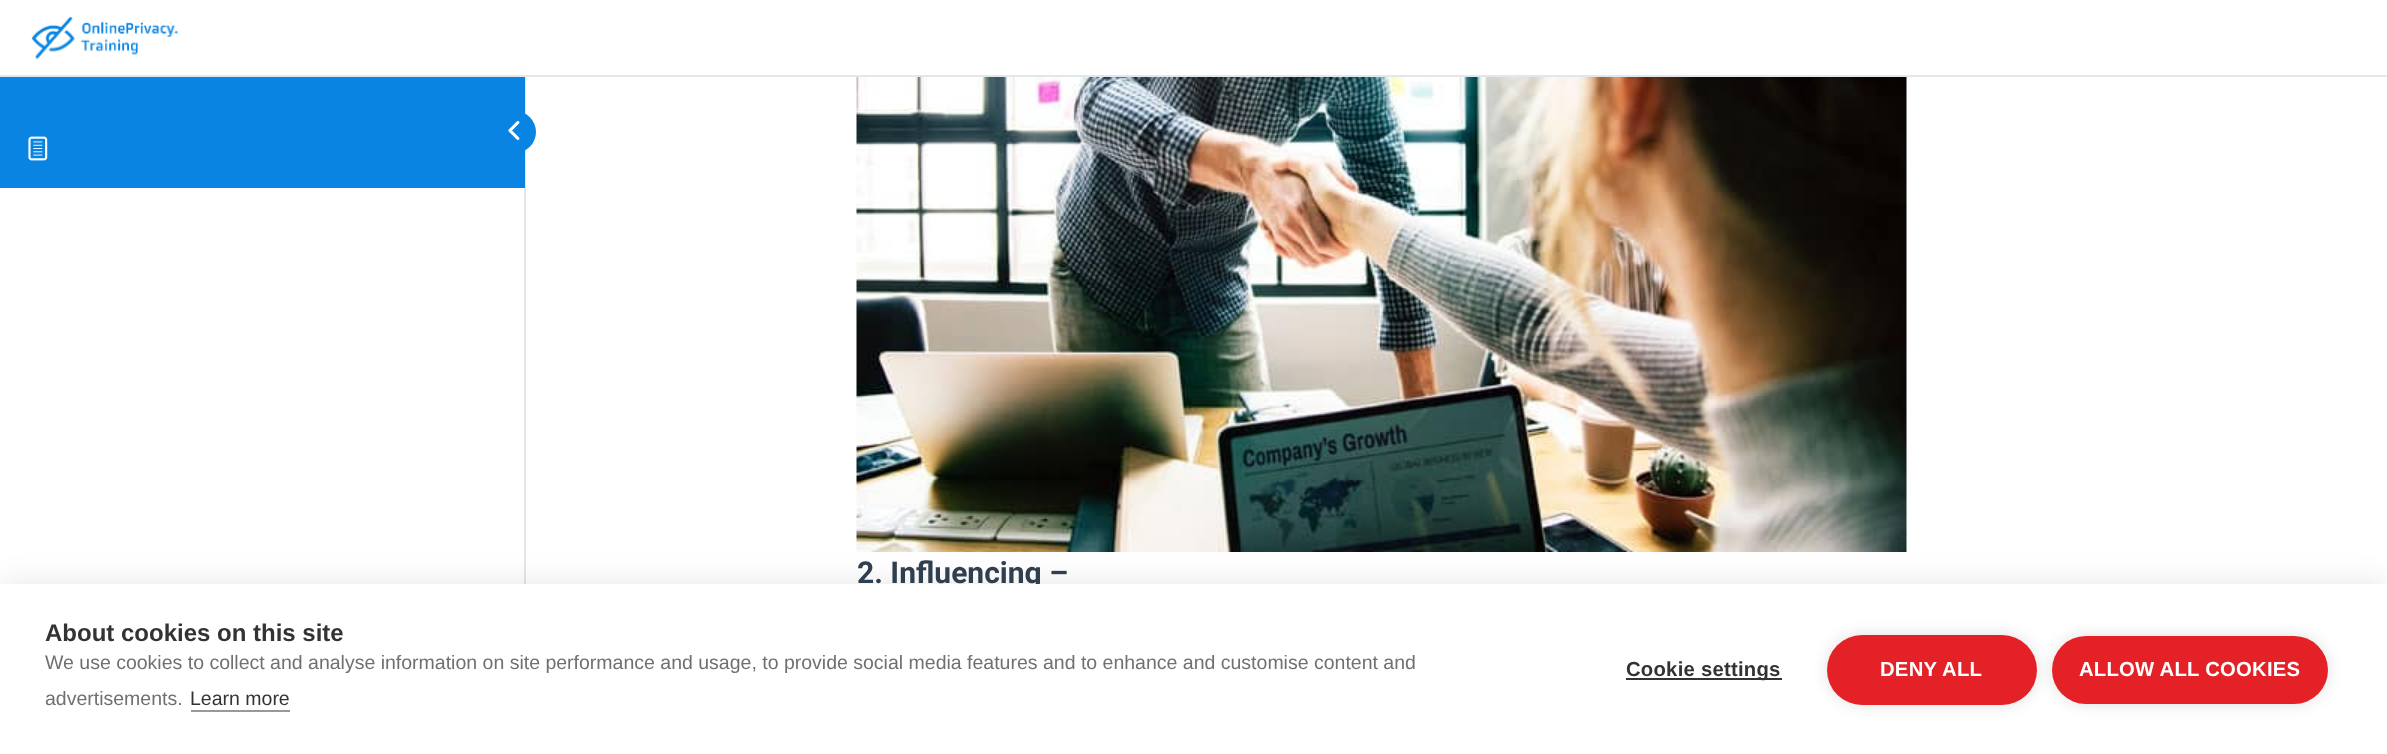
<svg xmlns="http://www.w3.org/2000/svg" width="2387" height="754">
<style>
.a{font:bold 30px Roboto;fill:#2f3f50}
.b{font:bold 24px Liberation Sans;fill:#333}
.c{font:19.5px Liberation Sans;fill:#707070}
.d{font:19.5px Liberation Sans;fill:#333}
.e{font:bold 20.25px Liberation Sans;letter-spacing:0.25px;fill:#333}
.f{font:bold 20.25px Liberation Sans;letter-spacing:0.25px;fill:#fff}
</style>
<rect width="100%" height="100%" fill="#fff"/>
<path fill="#e2e7ed" d="M524 77h2v507H524z"/>
<path fill="#0984e3" d="M0 77h525v111H0z"/>
<image href="1.png" x="28" y="136" width="20" height="25"/>
<rect fill="#0984e3" x="492" y="111" width="44" height="42" rx="21"/>
<image href="2.png" x="508" y="121" width="12" height="19"/>
<path fill="#e2e7ed" d="M0 75h2387v2H0z"/>
<image href="3.png" x="31" y="17" width="148" height="43"/>
<image href="4.png" x="856" y="77" width="1051" height="475"/>
<path fill="#0000001a" filter="blur(15px)" d="M0 584h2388v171H0z"/>
<text class="a" x="857" y="583">2. Influencing –</text>
<path fill="#fff" d="M0 584h2387v170H0z"/>
<text class="b" x="45" y="641">About cookies on this site</text>
<text class="c" x="45" y="669">We use cookies to collect and analyse information on site performance and usage, to provide social media features and to enhance and customise content and</text>
<text class="c" x="45" y="705">advertisements.</text>
<text class="d" x="190" y="705">Learn more</text>
<path fill="#999" d="M191 710h99v2H191z"/>
<path fill="#333" d="M1626 678h156v2H1626z"/>
<text class="e" x="1626" y="676">Cookie settings</text>
<rect fill="#0000001f" filter="blur(7.5px)" x="1827" y="635" width="210" height="70" rx="35"/>
<rect fill="#e42127" x="1827" y="635" width="210" height="70" rx="35"/>
<text class="f" x="1880" y="676">DENY ALL</text>
<rect fill="#0000001f" filter="blur(7.5px)" x="2052" y="636" width="276" height="68" rx="34"/>
<rect fill="#e42127" x="2052" y="636" width="276" height="68" rx="34"/>
<text class="f" x="2079" y="676">ALLOW ALL COOKIES</text>
</svg>
